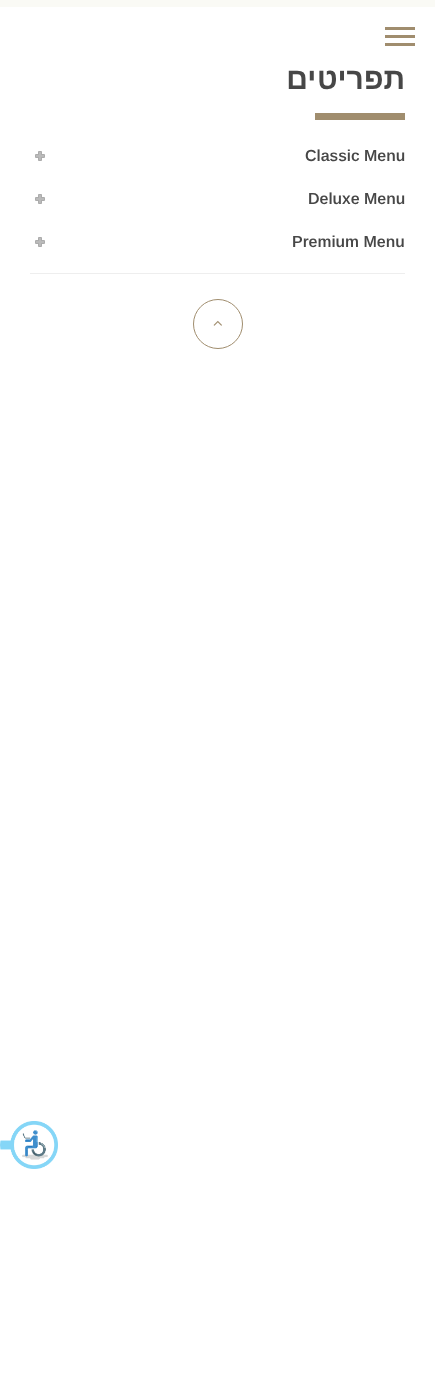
<svg xmlns="http://www.w3.org/2000/svg" width="435" height="1377">
<style>
.a{font:bold 30px Arimo;direction:rtl;fill:#474747}
.b{font:600 16px Arimo;fill:#474747}
</style>
<rect width="100%" height="100%" fill="#fafaf5"/>
<path fill="#fff" d="M0 7h435v1370H0z"/>
<path fill="#a08d6e" d="M385 35h30v3H385z"/>
<path fill="#a08d6e" d="M385 27h30v3H385z"/>
<path fill="#a08d6e" d="M385 43h30v3H385z"/>
<path fill="#a08d6e" d="M315 113h90v7H315z"/>
<path fill="none" stroke="#acacac" d="M35.5 154.5h9v3H35.5z"/>
<path fill="#bababa" stroke="#acacac" d="M38.5 151.5h3v9H38.5z"/>
<path fill="#bababa" d="M36 155h8v2H36z"/>
<path fill="none" stroke="#acacac" d="M35.5 197.5h9v3H35.5z"/>
<path fill="#bababa" stroke="#acacac" d="M38.5 194.5h3v9H38.5z"/>
<path fill="#bababa" d="M36 198h8v2H36z"/>
<path fill="none" stroke="#acacac" d="M35.5 240.5h9v3H35.5z"/>
<path fill="#bababa" stroke="#acacac" d="M38.5 237.5h3v9H38.5z"/>
<path fill="#bababa" d="M36 241h8v2H36z"/>
<path fill="#eee" d="M30 273h375v1H30z"/>
<circle fill="none" stroke="#a08d6e" cx="218" cy="324" r="24.5"/>
<image href="1.png" x="213" y="320" width="9" height="6"/>
<image href="2.png" x="0" y="1121" width="58" height="48"/>
<text class="a" x="405" y="89">תפריטים</text>
<text class="b" x="305" y="161">Classic Menu</text>
<text class="b" x="308" y="204">Deluxe Menu</text>
<text class="b" x="292" y="247">Premium Menu</text>
</svg>
